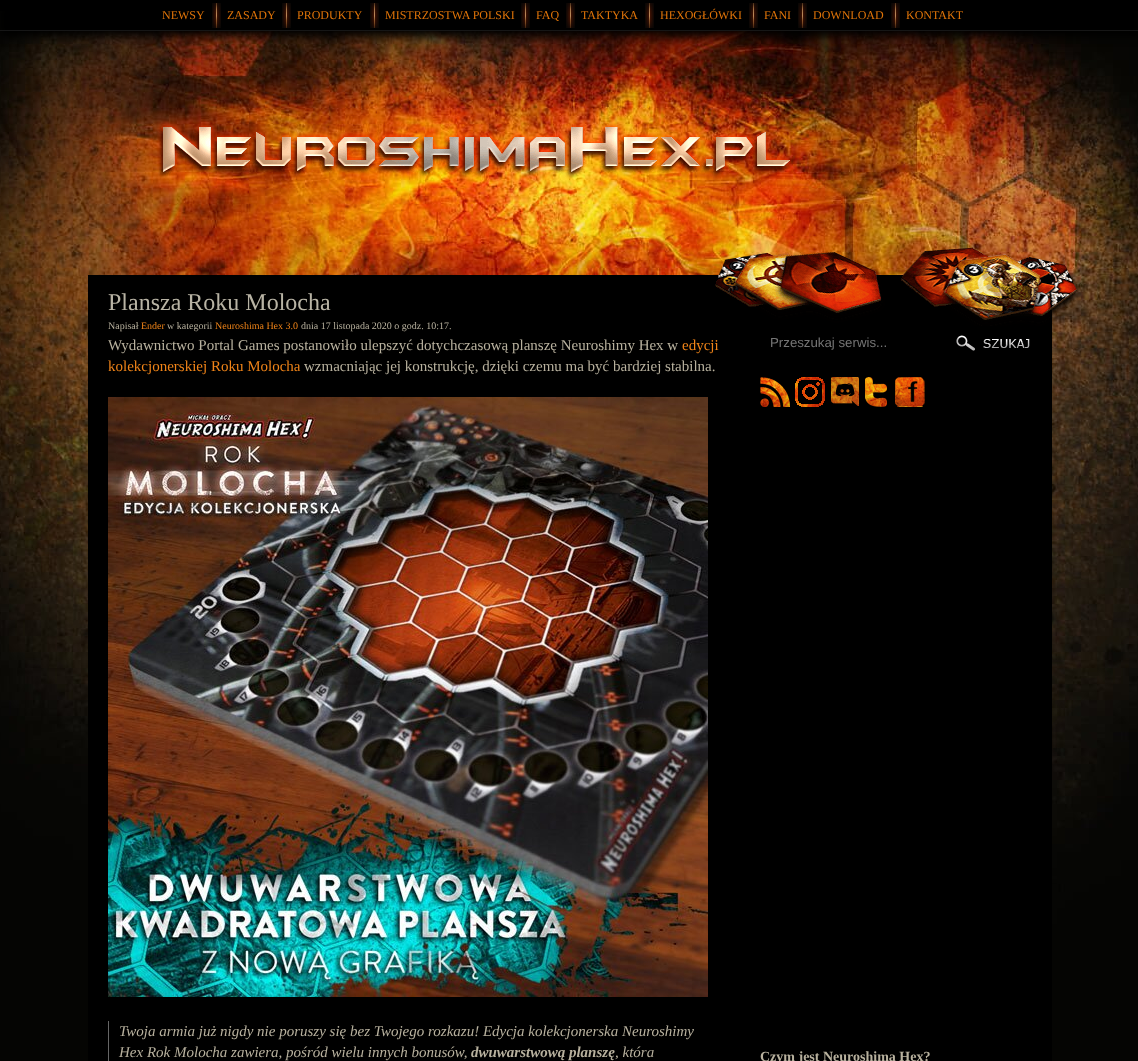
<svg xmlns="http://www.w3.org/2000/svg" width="1138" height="1061">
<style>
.a{font:12px Liberation Serif;fill:#e07408}
.b{font:24px Liberation Serif;fill:#b8b3a4}
.c{font:10px Liberation Serif;fill:#b8b19e}
.d{font:10px Liberation Serif;fill:#f08418}
.e{font:15px Liberation Serif;fill:#b8b19e}
.f{font:15px Liberation Serif;fill:#f08418}
.g{font:italic 15px Liberation Serif;fill:#b8b19e}
.h{font:italic bold 15px Liberation Serif;fill:#b8b19e}
.i{font:13.25px Liberation Sans;fill:#757575}
.j{font:bold 14px Liberation Serif;fill:#b8b19e}
</style>
<rect width="100%" height="100%" fill="#050503"/>
<image href="1.png" x="0" y="31" width="1138" height="929"/>
<path fill="#000" filter="blur(5px)" d="M0 5h1138v31H0z"/>
<path fill="#000" d="M0 0h1138v11H0z"/>
<path fill="#161616" d="M0 30h1138v1H0z"/>
<image href="2.png" x="212" y="3" width="9" height="25"/>
<image href="2.png" x="282" y="3" width="9" height="25"/>
<image href="2.png" x="370" y="3" width="9" height="25"/>
<image href="2.png" x="521" y="3" width="9" height="25"/>
<image href="2.png" x="566" y="3" width="9" height="25"/>
<image href="2.png" x="645" y="3" width="9" height="25"/>
<image href="2.png" x="749" y="3" width="9" height="25"/>
<image href="2.png" x="798" y="3" width="9" height="25"/>
<image href="2.png" x="891" y="3" width="9" height="25"/>
<image href="3.png" x="157" y="121" width="637" height="58"/>
<path fill="#000" d="M88 275h964v786H88z"/>
<image href="4.png" x="715" y="247" width="365" height="79"/>
<image href="5.png" x="108" y="397" width="600" height="600"/>
<path fill="#666" d="M108 1021h1v40H108z"/>
<image href="6.png" x="956" y="335" width="74" height="16"/>
<image href="7.png" x="760" y="377" width="30" height="30"/>
<image href="8.png" x="795" y="377" width="30" height="30"/>
<image href="9.png" x="831" y="377" width="28" height="29"/>
<image href="10.png" x="865" y="377" width="22" height="30"/>
<image href="11.png" x="895" y="377" width="30" height="30"/>
<text class="a" x="162" y="19">NEWSY</text>
<text class="a" x="227" y="19">ZASADY</text>
<text class="a" x="297" y="19">PRODUKTY</text>
<text class="a" x="385" y="19">MISTRZOSTWA POLSKI</text>
<text class="a" x="536" y="19">FAQ</text>
<text class="a" x="581" y="19">TAKTYKA</text>
<text class="a" x="660" y="19">HEXOGŁÓWKI</text>
<text class="a" x="764" y="19">FANI</text>
<text class="a" x="813" y="19">DOWNLOAD</text>
<text class="a" x="906" y="19">KONTAKT</text>
<text class="b" x="108" y="310">Plansza Roku Molocha</text>
<text class="c" x="108" y="329">Napisał</text>
<text class="d" x="141" y="329">Ender</text>
<text class="c" x="167" y="329">w kategorii</text>
<text class="d" x="215" y="329">Neuroshima Hex 3.0</text>
<text class="c" x="301" y="329">dnia 17 listopada 2020 o godz. 10:17.</text>
<text class="e" x="108" y="350">Wydawnictwo Portal Games postanowiło ulepszyć dotychczasową planszę Neuroshimy Hex w</text>
<text class="f" x="682" y="350">edycji</text>
<text class="f" x="108" y="371">kolekcjonerskiej Roku Molocha</text>
<text class="e" x="304" y="371">wzmacniając jej konstrukcję, dzięki czemu ma być bardziej stabilna.</text>
<text class="g" x="119" y="1036">Twoja armia już nigdy nie poruszy się bez Twojego rozkazu! Edycja kolekcjonerska Neuroshimy</text>
<text class="g" x="119" y="1057">Hex Rok Molocha zawiera, pośród wielu innych bonusów,</text>
<text class="h" x="471" y="1057">dwuwarstwową planszę</text>
<text class="g" x="615" y="1057">, która</text>
<text class="i" x="770" y="347">Przeszukaj serwis...</text>
<text class="j" x="760" y="1061">Czym jest Neuroshima Hex?</text>
</svg>
